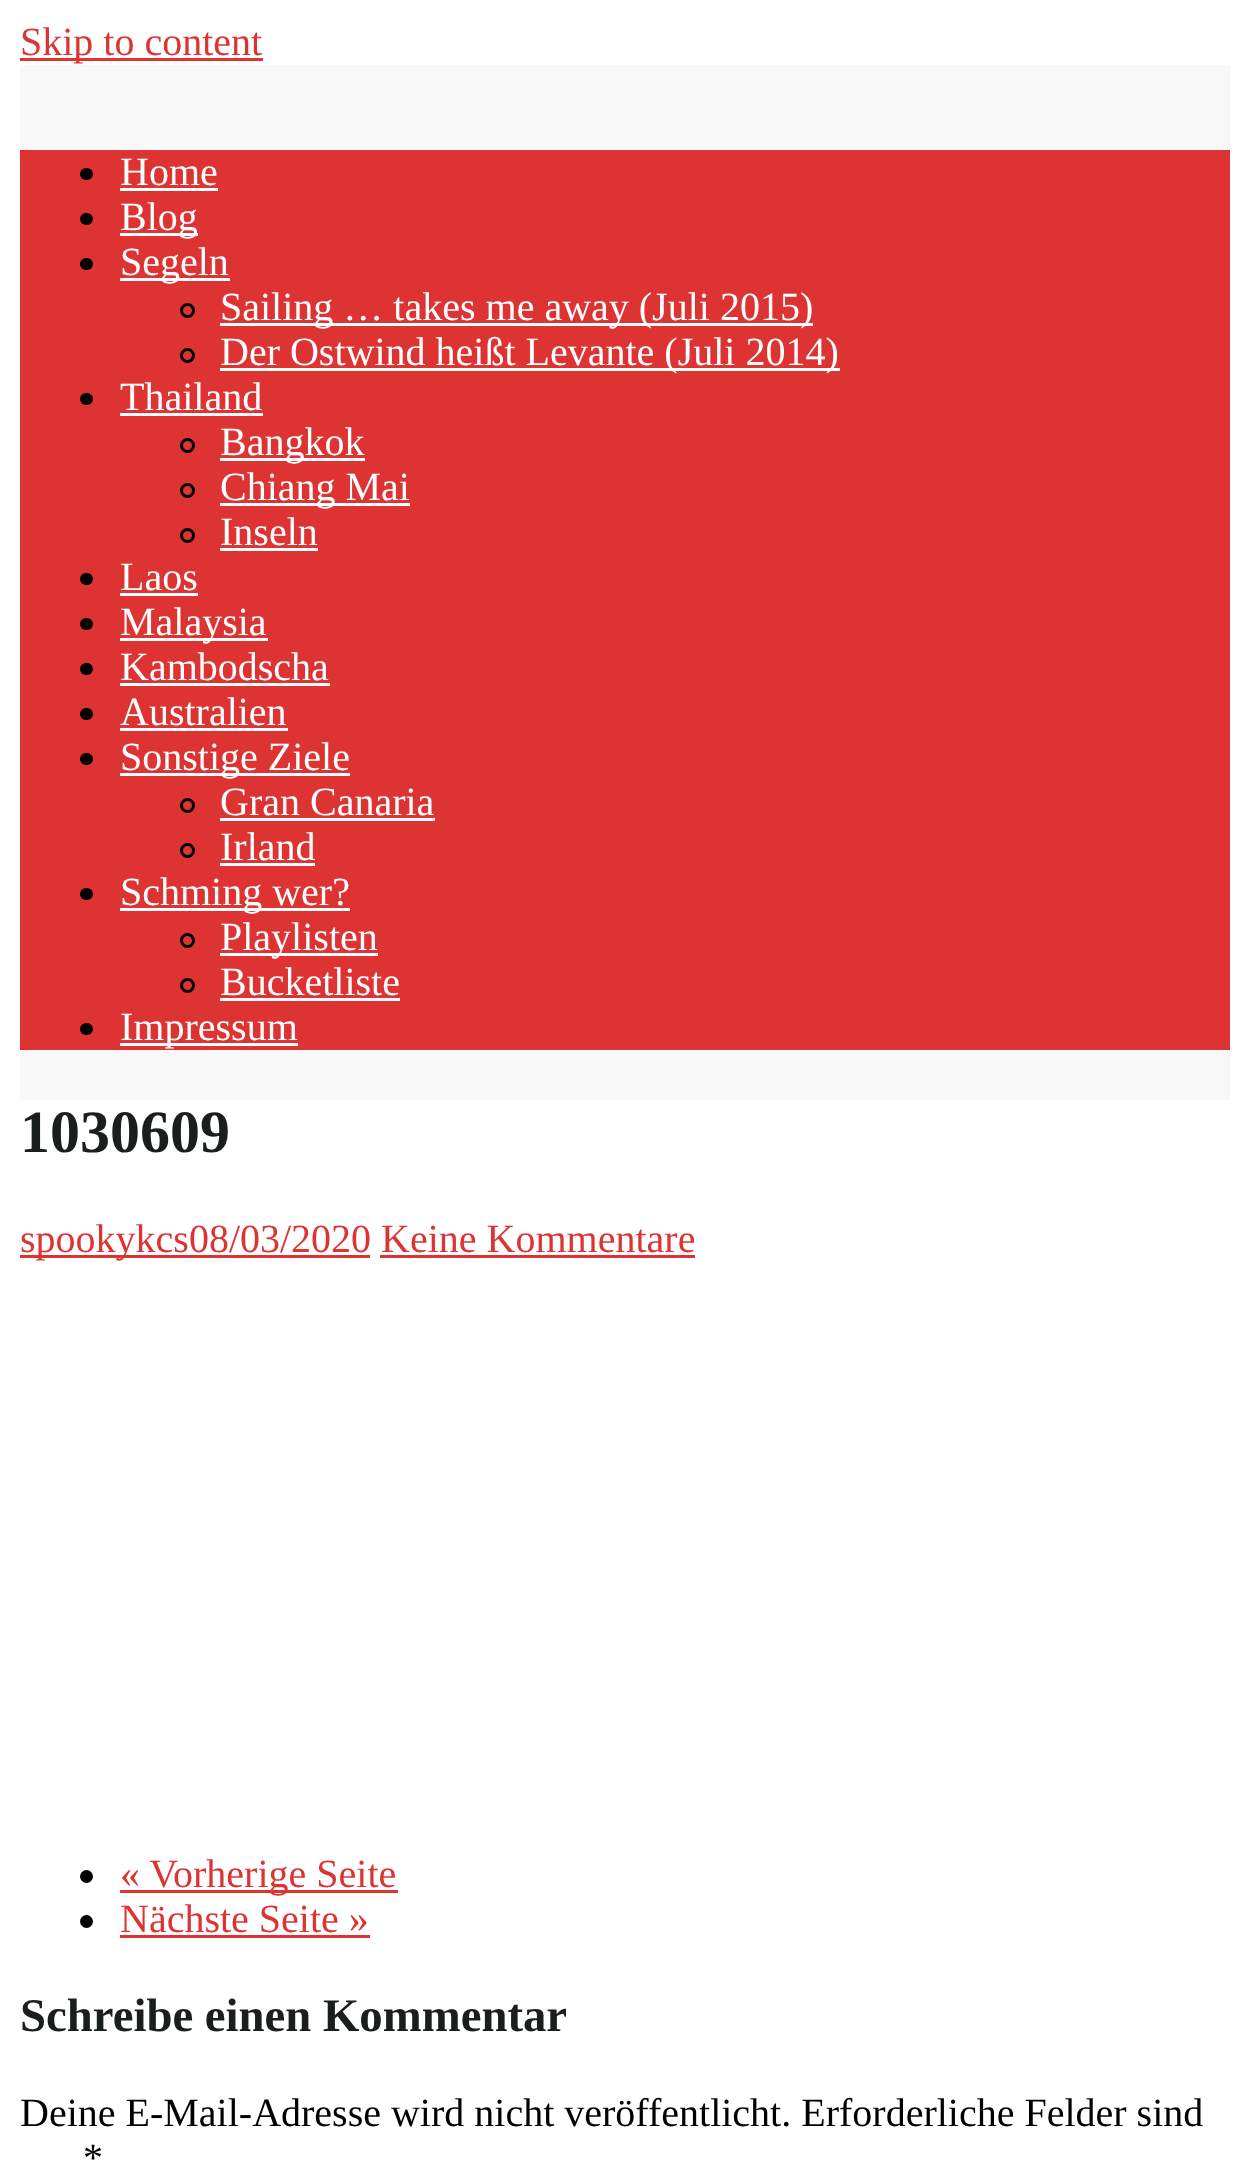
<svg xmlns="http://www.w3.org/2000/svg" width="1250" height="2164">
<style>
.a{font:40px Liberation Serif;fill:#d33}
.b{font:40px Liberation Serif;fill:#fff}
.c{font:bold 60px Liberation Serif;fill:#1b1e1f}
.d{font:bold 46.75px Liberation Serif;fill:#1b1e1f}
.e{font:40px Liberation Serif;fill:#000}
</style>
<rect width="100%" height="100%" fill="#fff"/>
<path fill="#d33" d="M20 58h243v3H20z"/>
<path fill="#f8f8f8" d="M20 65h1210v1035H20z"/>
<path fill="#d33" d="M20 150h1210v900H20z"/>
<rect fill="#000" x="80" y="168" width="13" height="12" rx="6"/>
<path fill="#fff" d="M120 188h98v3H120z"/>
<rect fill="#000" x="80" y="213" width="13" height="12" rx="6"/>
<path fill="#fff" d="M120 233h78v3H120z"/>
<rect fill="#000" x="80" y="258" width="13" height="12" rx="6"/>
<path fill="#fff" d="M120 278h110v3H120z"/>
<circle fill="none" stroke="#000" stroke-width="3" cx="187.5" cy="310.5" r="6"/>
<path fill="#fff" d="M220 323h593v3H220z"/>
<circle fill="none" stroke="#000" stroke-width="3" cx="187.5" cy="355.5" r="6"/>
<path fill="#fff" d="M220 368h620v3H220z"/>
<rect fill="#000" x="80" y="393" width="13" height="12" rx="6"/>
<path fill="#fff" d="M120 413h143v3H120z"/>
<circle fill="none" stroke="#000" stroke-width="3" cx="187.5" cy="445.5" r="6"/>
<path fill="#fff" d="M220 458h145v3H220z"/>
<circle fill="none" stroke="#000" stroke-width="3" cx="187.5" cy="490.5" r="6"/>
<path fill="#fff" d="M220 503h190v3H220z"/>
<circle fill="none" stroke="#000" stroke-width="3" cx="187.5" cy="535.5" r="6"/>
<path fill="#fff" d="M220 548h98v3H220z"/>
<rect fill="#000" x="80" y="573" width="13" height="12" rx="6"/>
<path fill="#fff" d="M120 593h78v3H120z"/>
<rect fill="#000" x="80" y="618" width="13" height="12" rx="6"/>
<path fill="#fff" d="M120 638h148v3H120z"/>
<rect fill="#000" x="80" y="663" width="13" height="12" rx="6"/>
<path fill="#fff" d="M120 683h210v3H120z"/>
<rect fill="#000" x="80" y="708" width="13" height="12" rx="6"/>
<path fill="#fff" d="M120 728h168v3H120z"/>
<rect fill="#000" x="80" y="753" width="13" height="12" rx="6"/>
<path fill="#fff" d="M120 773h230v3H120z"/>
<circle fill="none" stroke="#000" stroke-width="3" cx="187.5" cy="805.5" r="6"/>
<path fill="#fff" d="M220 818h215v3H220z"/>
<circle fill="none" stroke="#000" stroke-width="3" cx="187.5" cy="850.5" r="6"/>
<path fill="#fff" d="M220 863h95v3H220z"/>
<rect fill="#000" x="80" y="888" width="13" height="12" rx="6"/>
<path fill="#fff" d="M120 908h230v3H120z"/>
<circle fill="none" stroke="#000" stroke-width="3" cx="187.5" cy="940.5" r="6"/>
<path fill="#fff" d="M220 953h158v3H220z"/>
<circle fill="none" stroke="#000" stroke-width="3" cx="187.5" cy="985.5" r="6"/>
<path fill="#fff" d="M220 998h180v3H220z"/>
<rect fill="#000" x="80" y="1023" width="13" height="12" rx="6"/>
<path fill="#fff" d="M120 1043h178v3H120z"/>
<path fill="#d33" d="M20 1255h350v3H20z"/>
<path fill="#d33" d="M380 1255h315v3H380z"/>
<circle fill="#000" cx="86.5" cy="1876.5" r="6.5"/>
<path fill="#d33" d="M120 1890h278v3H120z"/>
<circle fill="#000" cx="86.5" cy="1921.5" r="6.5"/>
<path fill="#d33" d="M120 1935h250v3H120z"/>
<text class="a" x="20" y="55">Skip to content</text>
<text class="b" x="120" y="185">Home</text>
<text class="b" x="120" y="230">Blog</text>
<text class="b" x="120" y="275">Segeln</text>
<text class="b" x="220" y="320">Sailing … takes me away (Juli 2015)</text>
<text class="b" x="220" y="365">Der Ostwind heißt Levante (Juli 2014)</text>
<text class="b" x="120" y="410">Thailand</text>
<text class="b" x="220" y="455">Bangkok</text>
<text class="b" x="220" y="500">Chiang Mai</text>
<text class="b" x="220" y="545">Inseln</text>
<text class="b" x="120" y="590">Laos</text>
<text class="b" x="120" y="635">Malaysia</text>
<text class="b" x="120" y="680">Kambodscha</text>
<text class="b" x="120" y="725">Australien</text>
<text class="b" x="120" y="770">Sonstige Ziele</text>
<text class="b" x="220" y="815">Gran Canaria</text>
<text class="b" x="220" y="860">Irland</text>
<text class="b" x="120" y="905">Schming wer?</text>
<text class="b" x="220" y="950">Playlisten</text>
<text class="b" x="220" y="995">Bucketliste</text>
<text class="b" x="120" y="1040">Impressum</text>
<text class="c" x="20" y="1152">1030609</text>
<text class="a" x="20" y="1252">spookykcs08/03/2020 Keine Kommentare</text>
<text class="a" x="120" y="1887">« Vorherige Seite</text>
<text class="a" x="120" y="1932">Nächste Seite »</text>
<text class="d" x="20" y="2031">Schreibe einen Kommentar</text>
<text class="e" x="20" y="2126">Deine E-Mail-Adresse wird nicht veröffentlicht. Erforderliche Felder sind</text>
<text class="e" x="83" y="2171">*</text>
</svg>
